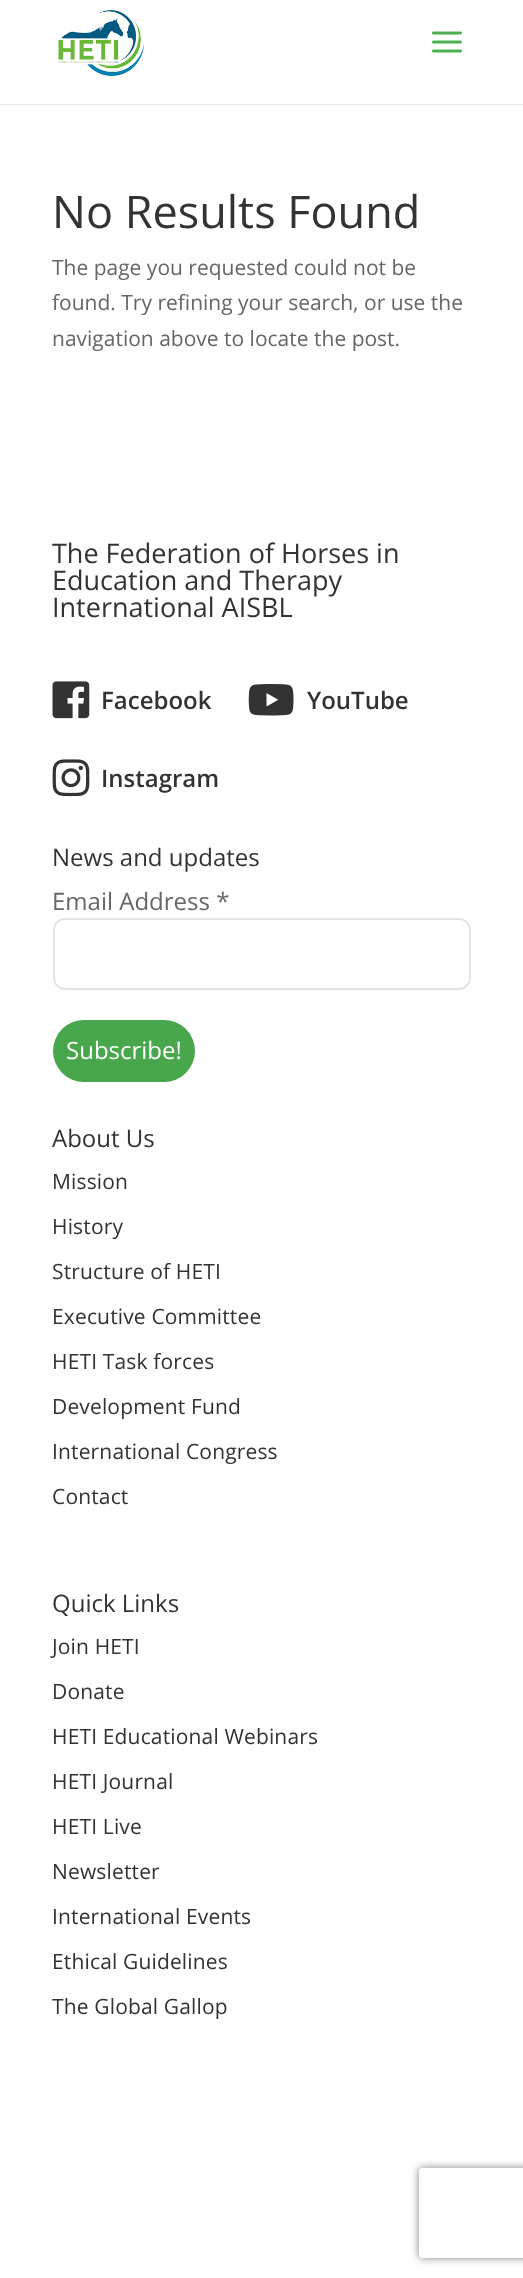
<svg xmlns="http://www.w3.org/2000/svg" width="523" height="2278">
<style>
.a{font:45px Open Sans;fill:#333}
.b{font:21px Open Sans;fill:#666}
.c{font:27px Open Sans;fill:#333}
.d{font:600 24px Open Sans;fill:#333}
.e{font:24px Open Sans;fill:#333}
.f{font:24px Open Sans;fill:#666}
.g{font:24px Open Sans;fill:#fff}
.h{font:21px Open Sans;letter-spacing:0.15px;fill:#333}
</style>
<defs>
<clipPath id="clip1"><path d="M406 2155h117v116h-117zm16 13h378c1.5 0 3 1.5 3 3v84c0 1.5-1.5 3-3 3h-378c-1.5 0-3-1.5-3-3v-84c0-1.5 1.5-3 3-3z" clip-rule="evenodd"/></clipPath>
</defs>
<rect width="100%" height="100%" fill="#fff"/>
<path fill="#e6e6e6" d="M0 104v1h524v-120v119z"/>
<image href="1.png" x="58" y="10" width="86" height="66"/>
<image href="2.png" x="432" y="31" width="30" height="22"/>
<image href="3.png" x="52" y="681" width="38" height="38"/>
<image href="4.png" x="248" y="684" width="46" height="32"/>
<image href="5.png" x="52" y="759" width="38" height="38"/>
<rect fill="none" stroke="#e4e4e4" stroke-width="2" x="54" y="919" width="416" height="70" rx="11"/>
<rect fill="#48a64c" x="53" y="1020" width="142" height="62" rx="31"/>
<g clip-path="url(#clip1)">
<rect fill="#808080" filter="blur(4px)" x="419" y="2168" width="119" height="90" rx="3"/>
</g>
<text class="a" x="52" y="228">No Results Found</text>
<text class="b" x="52" y="275">The page you requested could not be</text>
<text class="b" x="52" y="310">found. Try refining your search, or use the</text>
<text class="b" x="52" y="346">navigation above to locate the post.</text>
<text class="c" x="52" y="563">The Federation of Horses in</text>
<text class="c" x="52" y="590">Education and Therapy</text>
<text class="c" x="52" y="617">International AISBL</text>
<text class="d" x="101" y="709">Facebook</text>
<text class="d" x="307" y="709">YouTube</text>
<text class="d" x="101" y="787">Instagram</text>
<text class="e" x="52" y="866">News and updates</text>
<text class="f" x="52" y="910">Email Address *</text>
<text class="g" x="66" y="1059">Subscribe!</text>
<text class="e" x="52" y="1147">About Us</text>
<text class="h" x="52" y="1189">Mission</text>
<text class="h" x="52" y="1234">History</text>
<text class="h" x="52" y="1279">Structure of HETI</text>
<text class="h" x="52" y="1324">Executive Committee</text>
<text class="h" x="52" y="1369">HETI Task forces</text>
<text class="h" x="52" y="1414">Development Fund</text>
<text class="h" x="52" y="1459">International Congress</text>
<text class="h" x="52" y="1504">Contact</text>
<text class="e" x="52" y="1612">Quick Links</text>
<text class="h" x="52" y="1654">Join HETI</text>
<text class="h" x="52" y="1699">Donate</text>
<text class="h" x="52" y="1744">HETI Educational Webinars</text>
<text class="h" x="52" y="1789">HETI Journal</text>
<text class="h" x="52" y="1834">HETI Live</text>
<text class="h" x="52" y="1879">Newsletter</text>
<text class="h" x="52" y="1924">International Events</text>
<text class="h" x="52" y="1969">Ethical Guidelines</text>
<text class="h" x="52" y="2014">The Global Gallop</text>
</svg>
